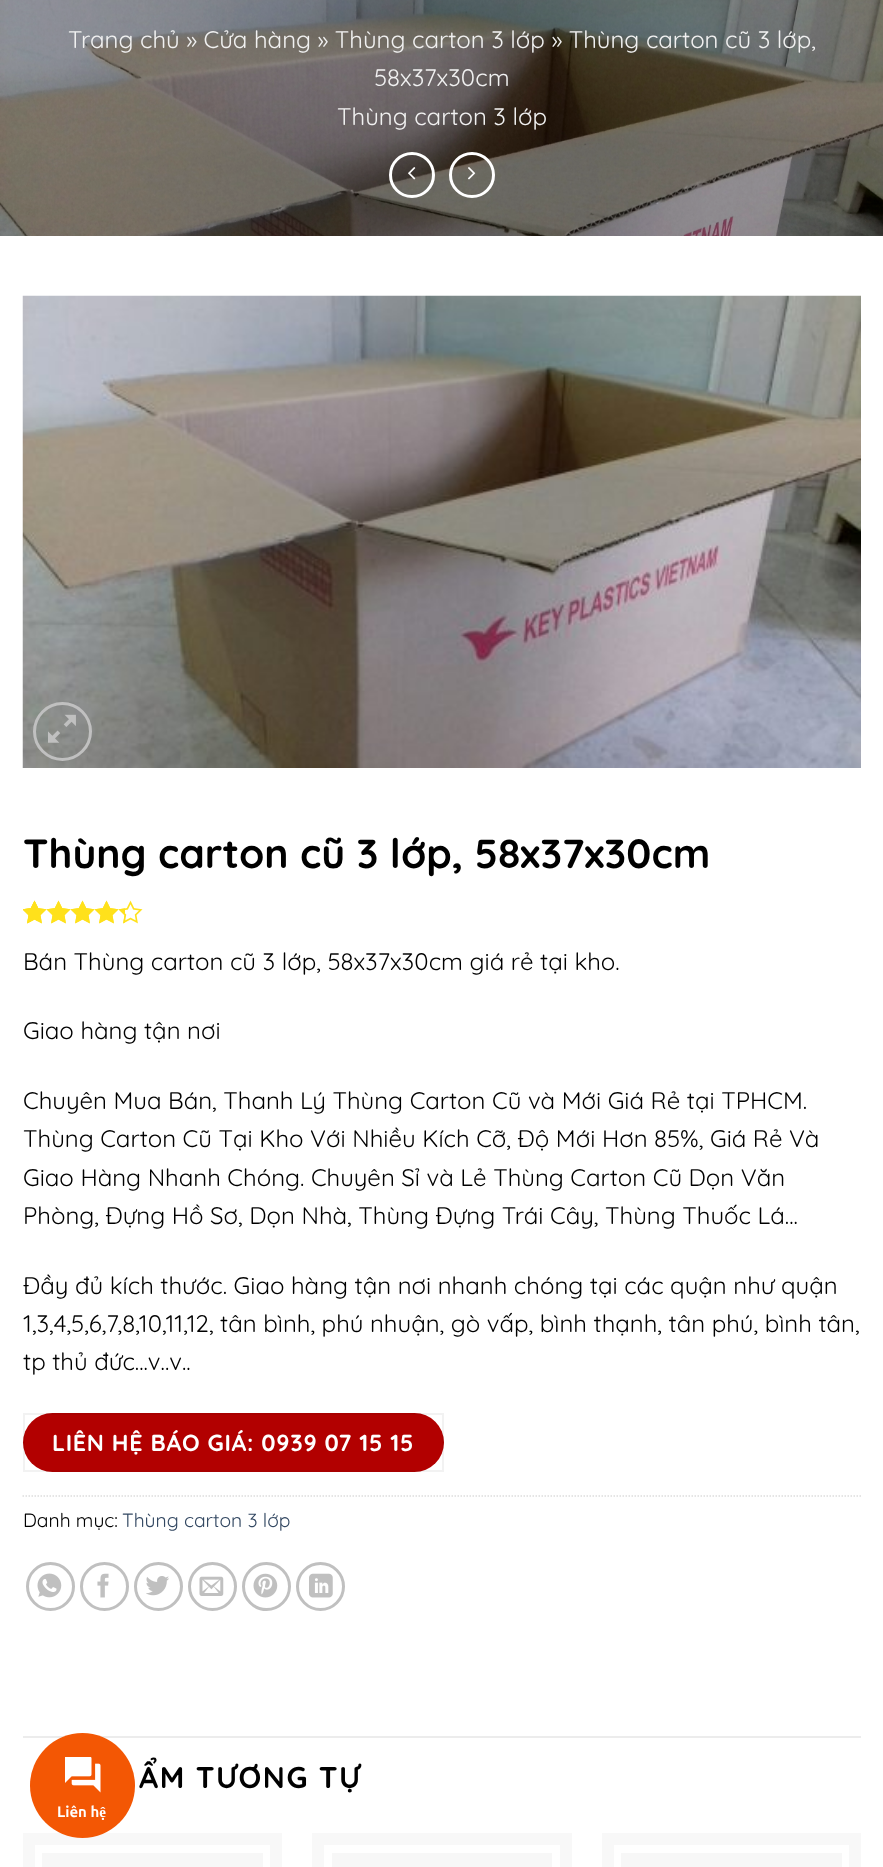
<svg xmlns="http://www.w3.org/2000/svg" width="883" height="1867">
<style>
.a{font:24px Quicksand;fill:#f1f1f1}
.b{font:bold 40.75px Quicksand;fill:#000}
.c{font:24px Quicksand;fill:#000}
.d{font:bold 23.25px Quicksand;letter-spacing:0.7px;fill:#fff}
.e{font:19.25px Quicksand;fill:#000}
.f{font:19.25px Quicksand;fill:#334862}
.g{font:bold 30px Quicksand;letter-spacing:1.5px;fill:#000}
.h{font:bold 15px Ubuntu;fill:#fff}
</style>
<rect width="100%" height="100%" fill="#fff"/>
<image href="1.png" x="0" y="0" width="883" height="236"/>
<circle fill="none" stroke="#fff" stroke-width="3" cx="412" cy="175" r="21.5"/>
<image href="2.png" x="408" y="167" width="8" height="13"/>
<circle fill="none" stroke="#fff" stroke-width="3" cx="472" cy="175" r="21.5"/>
<image href="3.png" x="468" y="167" width="8" height="13"/>
<image href="4.png" x="22" y="295" width="839" height="473"/>
<circle fill="none" stroke="#c0c0c0" stroke-width="3" cx="62.5" cy="731.5" r="28"/>
<image href="5.png" x="48" y="714" width="28" height="29"/>
<image href="6.png" x="23" y="900" width="120" height="24"/>
<image href="7.png" x="23" y="900" width="102" height="24"/>
<image href="8.png" x="23" y="900" width="15" height="24"/>
<rect fill="#b20000" x="23" y="1413" width="421" height="59" rx="29.5"/>
<path fill="none" stroke="#0000000d" stroke-width="2" d="M24 1414h419v57H24z"/>
<path fill="none" stroke="#ddd" stroke-width="1.5" stroke-dasharray="1.5 1.5" d="M22.5 1496h838.5"/>
<circle fill="none" stroke="#c0c0c0" stroke-width="3" cx="50.5" cy="1586.5" r="23"/>
<image href="9.png" x="37" y="1573" width="25" height="25"/>
<circle fill="none" stroke="#c0c0c0" stroke-width="3" cx="104.5" cy="1586.5" r="23"/>
<image href="10.png" x="97" y="1573" width="12" height="25"/>
<circle fill="none" stroke="#c0c0c0" stroke-width="3" cx="158.5" cy="1586.5" r="23"/>
<image href="11.png" x="146" y="1576" width="23" height="20"/>
<circle fill="none" stroke="#c0c0c0" stroke-width="3" cx="212.5" cy="1586.5" r="23"/>
<image href="12.png" x="199" y="1576" width="25" height="20"/>
<circle fill="none" stroke="#c0c0c0" stroke-width="3" cx="266.5" cy="1586.5" r="23"/>
<image href="13.png" x="253" y="1573" width="25" height="25"/>
<circle fill="none" stroke="#c0c0c0" stroke-width="3" cx="320.5" cy="1586.5" r="23"/>
<image href="14.png" x="309" y="1573" width="24" height="25"/>
<path fill="#ececec" d="M23 1736h838v2H23z"/>
<path fill="none" stroke="#f8f8f8" stroke-width="12" d="M29 1839h247v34H29z"/>
<path fill="#f7f7f7" d="M42 1853h221v14H42z"/>
<path fill="none" stroke="#f8f8f8" stroke-width="12" d="M318 1839h248v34H318z"/>
<path fill="#f7f7f7" d="M332 1853h220v14H332z"/>
<path fill="none" stroke="#f8f8f8" stroke-width="12" d="M608 1839h247v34H608z"/>
<path fill="#f7f7f7" d="M621 1853h221v14H621z"/>
<circle fill="#f35704" cx="82.5" cy="1785.5" r="52.5"/>
<image href="15.png" x="65" y="1757" width="36" height="36"/>
<text class="a" x="68" y="48">Trang chủ » Cửa hàng » Thùng carton 3 lớp » Thùng carton cũ 3 lớp,</text>
<text class="a" x="374" y="86">58x37x30cm</text>
<text class="a" x="337" y="125">Thùng carton 3 lớp</text>
<text class="b" x="23" y="868">Thùng carton cũ 3 lớp, 58x37x30cm</text>
<text class="c" x="23" y="970">Bán Thùng carton cũ 3 lớp, 58x37x30cm giá rẻ tại kho.</text>
<text class="c" x="23" y="1039">Giao hàng tận nơi</text>
<text class="c" x="23" y="1109">Chuyên Mua Bán, Thanh Lý Thùng Carton Cũ và Mới Giá Rẻ tại TPHCM.</text>
<text class="c" x="23" y="1147">Thùng Carton Cũ Tại Kho Với Nhiều Kích Cỡ, Độ Mới Hơn 85%, Giá Rẻ Và</text>
<text class="c" x="23" y="1186">Giao Hàng Nhanh Chóng. Chuyên Sỉ và Lẻ Thùng Carton Cũ Dọn Văn</text>
<text class="c" x="23" y="1224">Phòng, Đựng Hồ Sơ, Dọn Nhà, Thùng Đựng Trái Cây, Thùng Thuốc Lá...</text>
<text class="c" x="23" y="1294">Đầy đủ kích thước. Giao hàng tận nơi nhanh chóng tại các quận như quận</text>
<text class="c" x="23" y="1332">1,3,4,5,6,7,8,10,11,12, tân bình, phú nhuận, gò vấp, bình thạnh, tân phú, bình tân,</text>
<text class="c" x="23" y="1370">tp thủ đức...v..v..</text>
<text class="d" x="52" y="1451">LIÊN HỆ BÁO GIÁ: 0939 07 15 15</text>
<text class="e" x="23" y="1527">Danh mục:</text>
<text class="f" x="122" y="1527">Thùng carton 3 lớp</text>
<text class="g" x="139" y="1788">ẨM TƯƠNG TỰ</text>
<text class="h" x="57" y="1817">Liên hệ</text>
</svg>
